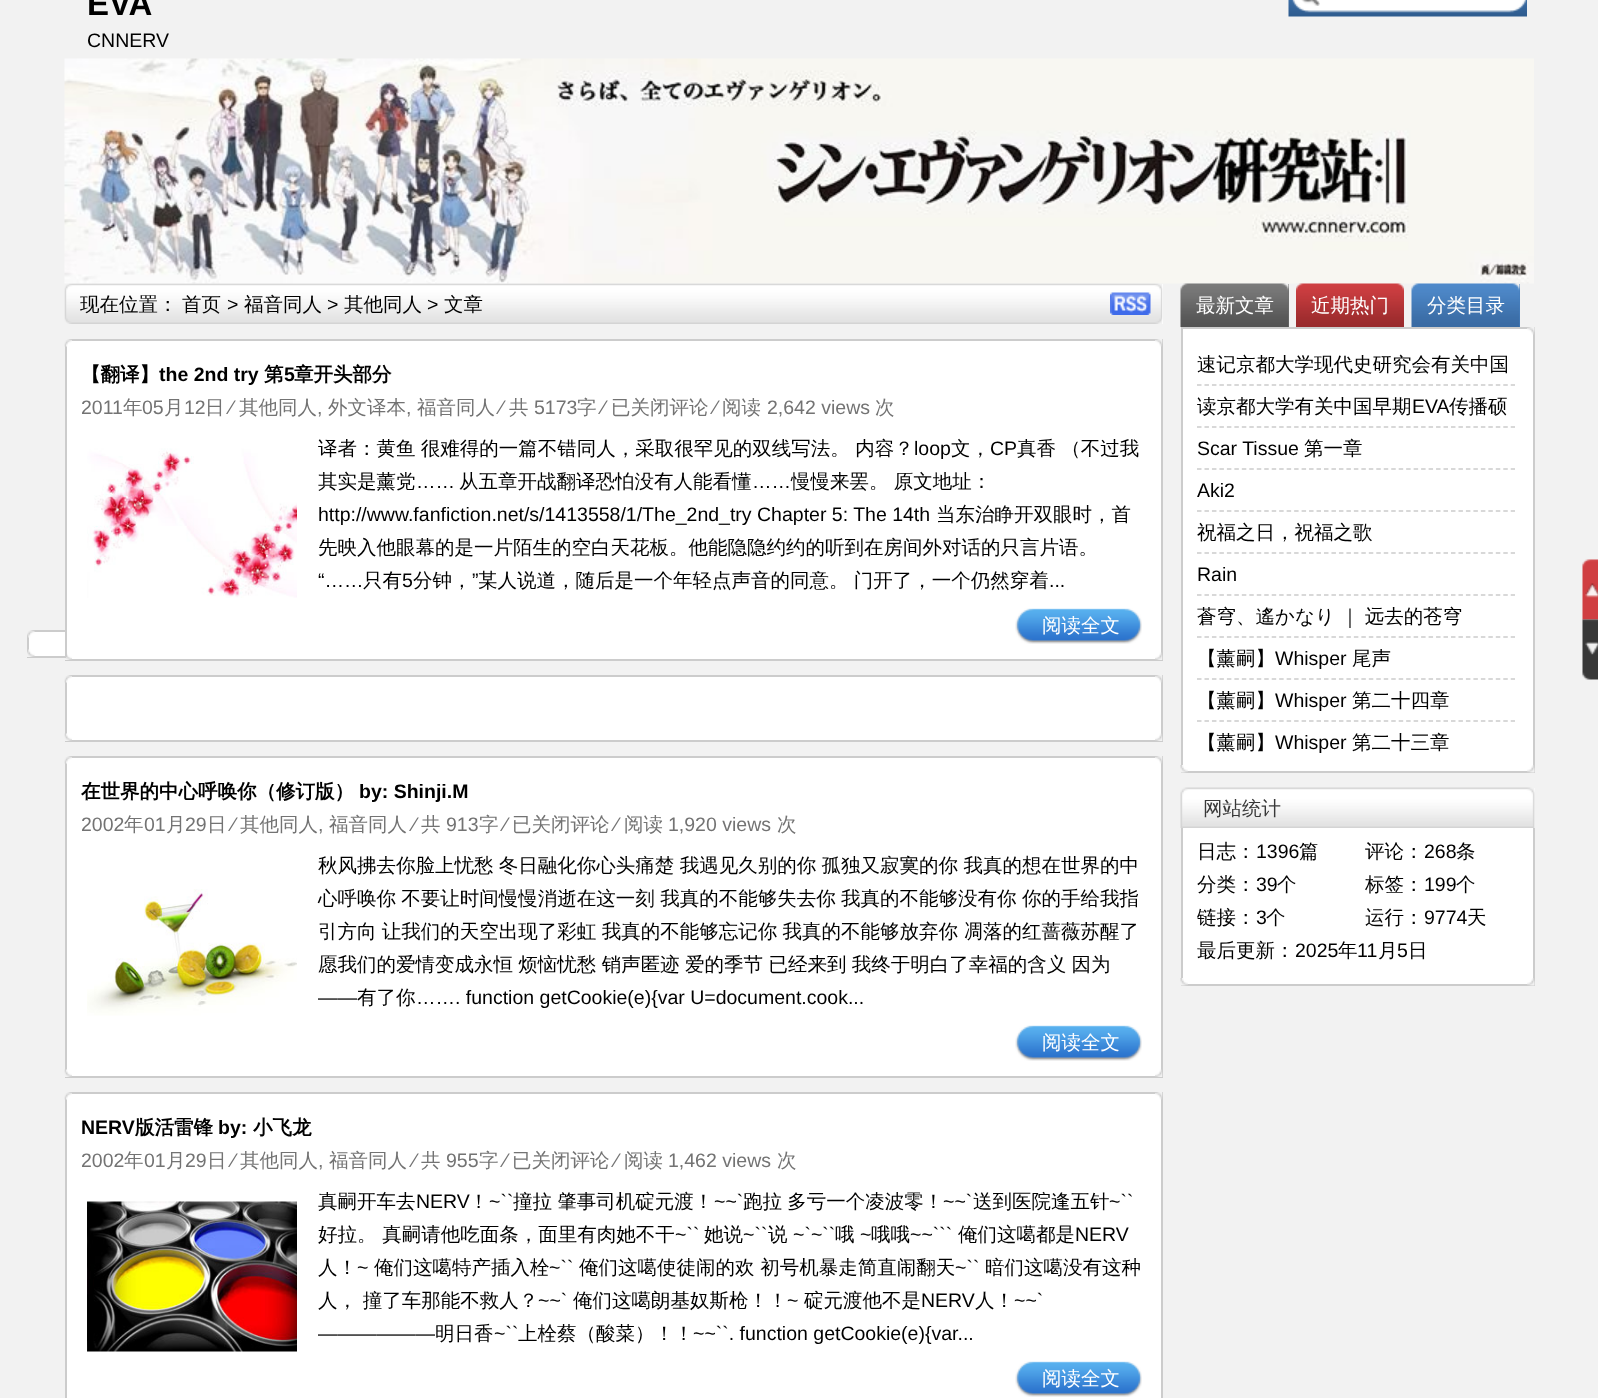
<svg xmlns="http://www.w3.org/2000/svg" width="1598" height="1398">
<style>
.a{font:bold 33px Liberation Sans;fill:#000}
.b{font:19.5px Liberation Sans;fill:#000}
.c{font:500 19.5px WenQuanYi Zen Hei;fill:#000}
.d{font:bold 19.5px WenQuanYi Zen Hei;fill:#000}
.e{font:bold 19.5px Liberation Sans;fill:#000}
.f{font:19.5px Liberation Sans;fill:#737373}
.g{font:500 19.5px WenQuanYi Zen Hei;fill:#737373}
.h{font:500 19.5px WenQuanYi Zen Hei;fill:#fff}
.i{font:500 19.5px WenQuanYi Zen Hei;fill:#393939}
</style>
<rect width="100%" height="100%" fill="#f2f2f2"/>
<image href="1.png" x="1288" y="0" width="239" height="17"/>
<image href="2.png" x="1301" y="0" width="19" height="6"/>
<image href="3.png" x="64" y="58" width="1470" height="226"/>
<path fill="#fff" d="M67 341h1094v318H67z"/>
<path fill="#ccc" d="M65 339h1098v2H65z"/>
<path fill="#ccc" d="M1161 339h2v321H1161z"/>
<path fill="#ccc" d="M65 659h1098v2H65z"/>
<image href="12.png" x="64" y="652" width="8" height="8"/>
<path fill="#fff" d="M29 632h36v24H29z"/>
<path fill="#ccc" d="M27 630h39v2H27z"/>
<path fill="#ccc" d="M65 630h2v27H65z"/>
<path fill="#ccc" d="M27 630h2v14H27z"/>
<image href="4.png" x="27" y="630" width="8" height="8"/>
<path fill="#ccc" d="M27 656h39v2H27z"/>
<path fill="#ccc" d="M27 644h2v13H27z"/>
<image href="5.png" x="27" y="649" width="8" height="8"/>
<path fill="#fff" d="M1162 284h1v40H1162z"/>
<image href="6.png" x="64" y="283" width="1099" height="41"/>
<image href="7.png" x="1110" y="292" width="41" height="23"/>
<path fill="#ccc" d="M65 339h2v291H65z"/>
<image href="8.png" x="64" y="339" width="8" height="8"/>
<image href="9.png" x="1155" y="339" width="8" height="8"/>
<image href="10.png" x="87" y="448" width="210" height="150"/>
<image href="11.png" x="1015" y="608" width="127" height="36"/>
<image href="13.png" x="1155" y="652" width="8" height="8"/>
<path fill="#fff" d="M67 677h1094v63H67z"/>
<path fill="#ccc" d="M65 675h1098v2H65z"/>
<path fill="#ccc" d="M1161 675h2v66H1161z"/>
<path fill="#ccc" d="M65 675h2v50H65z"/>
<image href="8.png" x="64" y="675" width="8" height="8"/>
<image href="9.png" x="1155" y="675" width="8" height="8"/>
<path fill="#ccc" d="M65 740h1098v2H65z"/>
<path fill="#ccc" d="M65 725h2v16H65z"/>
<image href="12.png" x="64" y="733" width="8" height="8"/>
<image href="13.png" x="1155" y="733" width="8" height="8"/>
<path fill="#fff" d="M67 758h1094v318H67z"/>
<path fill="#ccc" d="M65 756h1098v2H65z"/>
<path fill="#ccc" d="M1161 756h2v321H1161z"/>
<path fill="#ccc" d="M65 756h2v305H65z"/>
<image href="8.png" x="64" y="756" width="8" height="8"/>
<image href="9.png" x="1155" y="756" width="8" height="8"/>
<image href="14.png" x="87" y="889" width="210" height="127"/>
<image href="11.png" x="1015" y="1025" width="127" height="36"/>
<path fill="#ccc" d="M65 1076h1098v2H65z"/>
<path fill="#ccc" d="M65 1061h2v16H65z"/>
<image href="12.png" x="64" y="1069" width="8" height="8"/>
<image href="13.png" x="1155" y="1069" width="8" height="8"/>
<path fill="#fff" d="M67 1094h1094v303H67z"/>
<path fill="#ccc" d="M65 1092h1098v2H65z"/>
<path fill="#ccc" d="M1161 1092h2v305H1161z"/>
<path fill="#ccc" d="M65 1092h2v305H65z"/>
<image href="8.png" x="64" y="1092" width="8" height="8"/>
<image href="9.png" x="1155" y="1092" width="8" height="8"/>
<image href="15.png" x="87" y="1201" width="210" height="151"/>
<image href="11.png" x="1015" y="1361" width="127" height="36"/>
<path fill="#fff" d="M65 1397h1098v1H65z"/>
<path fill="#ccc" d="M1161 1397h2v1H1161z"/>
<path fill="#ccc" d="M65 1397h2v1H65z"/>
<path fill="#717171" d="M1288 284h1v43H1288z"/>
<image href="16.png" x="1180" y="283" width="109" height="44"/>
<image href="17.png" x="1296" y="283" width="108" height="44"/>
<path fill="#467ebd" d="M1519 284h1v43H1519z"/>
<image href="18.png" x="1411" y="283" width="109" height="44"/>
<path fill="#ccc" d="M1181 327h354v2H1181z"/>
<path fill="#ccc" d="M1533 327h2v11H1533z"/>
<path fill="#ccc" d="M1181 327h2v11H1181z"/>
<path fill="#fff" d="M1183 329h350v442H1183z"/>
<image href="19.png" x="1527" y="327" width="8" height="8"/>
<path fill="#ccc" d="M1533 338h2v435H1533z"/>
<path fill="#ccc" d="M1181 338h2v429H1181z"/>
<path fill="none" stroke="#ccc" stroke-width="1.5" stroke-dasharray="4.5 2.97" d="M1197 385h318"/>
<path fill="none" stroke="#ccc" stroke-width="1.5" stroke-dasharray="4.5 2.97" d="M1197 427h318"/>
<path fill="none" stroke="#ccc" stroke-width="1.5" stroke-dasharray="4.5 2.97" d="M1197 469h318"/>
<path fill="none" stroke="#ccc" stroke-width="1.5" stroke-dasharray="4.5 2.97" d="M1197 511h318"/>
<path fill="none" stroke="#ccc" stroke-width="1.5" stroke-dasharray="4.5 2.97" d="M1197 553h318"/>
<path fill="none" stroke="#ccc" stroke-width="1.5" stroke-dasharray="4.5 2.97" d="M1197 595h318"/>
<path fill="none" stroke="#ccc" stroke-width="1.5" stroke-dasharray="4.5 2.97" d="M1197 637h318"/>
<path fill="none" stroke="#ccc" stroke-width="1.5" stroke-dasharray="4.5 2.97" d="M1197 679h318"/>
<path fill="none" stroke="#ccc" stroke-width="1.5" stroke-dasharray="4.5 2.97" d="M1197 721h318"/>
<path fill="#ccc" d="M1181 771h354v2H1181z"/>
<path fill="#ccc" d="M1181 762h2v11H1181z"/>
<image href="20.png" x="1180" y="765" width="8" height="8"/>
<image href="21.png" x="1527" y="765" width="8" height="8"/>
<path fill="#fff" d="M1534 788h1v40H1534z"/>
<image href="22.png" x="1180" y="787" width="355" height="41"/>
<path fill="#fff" d="M1183 828h350v147H1183z"/>
<path fill="#ccc" d="M1533 828h2v147H1533z"/>
<path fill="#ccc" d="M1181 828h2v147H1181z"/>
<path fill="#fff" d="M1183 975h350v9H1183z"/>
<path fill="#ccc" d="M1533 975h2v11H1533z"/>
<path fill="#ccc" d="M1181 984h354v2H1181z"/>
<path fill="#ccc" d="M1181 975h2v11H1181z"/>
<image href="20.png" x="1180" y="978" width="8" height="8"/>
<image href="21.png" x="1527" y="978" width="8" height="8"/>
<image href="23.png" x="1582" y="559" width="16" height="61"/>
<image href="24.png" x="1582" y="619" width="16" height="61"/>
<text class="a" x="87" y="15">EVA</text>
<text class="b" x="87" y="47">CNNERV</text>
<text class="c" x="80" y="311">现在位置：</text>
<text class="c" x="182" y="311">首页</text>
<text class="b" x="227" y="311">&gt;</text>
<text class="c" x="244" y="311">福音同人</text>
<text class="b" x="327" y="311">&gt;</text>
<text class="c" x="344" y="311">其他同人</text>
<text class="b" x="427" y="311">&gt;</text>
<text class="c" x="444" y="311">文章</text>
<text class="d" x="81" y="381">【翻译】</text>
<text class="e" x="159" y="381">the 2nd try</text>
<text class="d" x="264" y="381">第</text>
<text class="e" x="284" y="381">5</text>
<text class="d" x="294" y="381">章开头部分</text>
<text class="f" x="81" y="414">2011</text>
<text class="g" x="123" y="414">年</text>
<text class="f" x="142" y="414">05</text>
<text class="g" x="164" y="414">月</text>
<text class="f" x="184" y="414">12</text>
<text class="g" x="205" y="414">日</text>
<text class="f" x="230" y="414">⁄</text>
<text class="g" x="239" y="414">其他同人</text>
<text class="f" x="317" y="414">,</text>
<text class="g" x="328" y="414">外文译本</text>
<text class="f" x="406" y="414">,</text>
<text class="g" x="417" y="414">福音同人</text>
<text class="f" x="500" y="414">⁄</text>
<text class="g" x="509" y="414">共</text>
<text class="f" x="534" y="414">5173</text>
<text class="g" x="577" y="414">字</text>
<text class="f" x="602" y="414">⁄</text>
<text class="g" x="611" y="414">已关闭评论</text>
<text class="f" x="714" y="414">⁄</text>
<text class="g" x="722" y="414">阅读</text>
<text class="f" x="767" y="414">2,642 views</text>
<text class="g" x="875" y="414">次</text>
<text class="c" x="318" y="455" word-spacing="-0.5">译者：黄鱼 很难得的一篇不错同人，采取很罕见的双线写法。 内容？</text>
<text class="b" x="914" y="455">loop</text>
<text class="c" x="951" y="455">文，</text>
<text class="b" x="990" y="455">CP</text>
<text class="c" x="1017" y="455" word-spacing="-0.5">真香 （不过我</text>
<text class="c" x="318" y="488">其实是薰党</text>
<text class="b" x="416" y="488">……</text>
<text class="c" x="459" y="488">从五章开战翻译恐怕没有人能看懂</text>
<text class="b" x="752" y="488">……</text>
<text class="c" x="791" y="488" word-spacing="-0.5">慢慢来罢。 原文地址：</text>
<text class="b" x="318" y="521">http://www.fanfiction.net/s/1413558/1/The_2nd_try Chapter 5: The 14th</text>
<text class="c" x="936" y="521">当东治睁开双眼时，首</text>
<text class="c" x="318" y="554">先映入他眼幕的是一片陌生的空白天花板。他能隐隐约约的听到在房间外对话的只言片语。</text>
<text class="b" x="318" y="587">“……</text>
<text class="c" x="363" y="587">只有</text>
<text class="b" x="402" y="587">5</text>
<text class="c" x="413" y="587">分钟，</text>
<text class="b" x="472" y="587">”</text>
<text class="c" x="478" y="587" word-spacing="-0.5">某人说道，随后是一个年轻点声音的同意。 门开了，一个仍然穿着</text>
<text class="b" x="1049" y="587">...</text>
<text class="h" x="1042" y="632">阅读全文</text>
<text class="d" x="81" y="798">在世界的中心呼唤你（修订版）</text>
<text class="e" x="359" y="798">by: Shinji.M</text>
<text class="f" x="81" y="831">2002</text>
<text class="g" x="124" y="831">年</text>
<text class="f" x="144" y="831">01</text>
<text class="g" x="166" y="831">月</text>
<text class="f" x="185" y="831">29</text>
<text class="g" x="207" y="831">日</text>
<text class="f" x="232" y="831">⁄</text>
<text class="g" x="240" y="831">其他同人</text>
<text class="f" x="318" y="831">,</text>
<text class="g" x="329" y="831">福音同人</text>
<text class="f" x="413" y="831">⁄</text>
<text class="g" x="421" y="831">共</text>
<text class="f" x="446" y="831">913</text>
<text class="g" x="479" y="831">字</text>
<text class="f" x="504" y="831">⁄</text>
<text class="g" x="512" y="831">已关闭评论</text>
<text class="f" x="615" y="831">⁄</text>
<text class="g" x="624" y="831">阅读</text>
<text class="f" x="668" y="831">1,920 views</text>
<text class="g" x="777" y="831">次</text>
<text class="c" x="318" y="872" word-spacing="-0.5">秋风拂去你脸上忧愁 冬日融化你心头痛楚 我遇见久别的你 孤独又寂寞的你 我真的想在世界的中</text>
<text class="c" x="318" y="905" word-spacing="-0.5">心呼唤你 不要让时间慢慢消逝在这一刻 我真的不能够失去你 我真的不能够没有你 你的手给我指</text>
<text class="c" x="318" y="938" word-spacing="-0.5">引方向 让我们的天空出现了彩虹 我真的不能够忘记你 我真的不能够放弃你 凋落的红蔷薇苏醒了</text>
<text class="c" x="318" y="971" word-spacing="-0.5">愿我们的爱情变成永恒 烦恼忧愁 销声匿迹 爱的季节 已经来到 我终于明白了幸福的含义 因为</text>
<text class="b" x="318" y="1004">——</text>
<text class="c" x="357" y="1004">有了你</text>
<text class="b" x="416" y="1004">……. function getCookie(e){var U=document.cook...</text>
<text class="h" x="1042" y="1049">阅读全文</text>
<text class="e" x="81" y="1134">NERV</text>
<text class="d" x="135" y="1134">版活雷锋</text>
<text class="e" x="218" y="1134">by:</text>
<text class="d" x="253" y="1134">小飞龙</text>
<text class="f" x="81" y="1167">2002</text>
<text class="g" x="124" y="1167">年</text>
<text class="f" x="144" y="1167">01</text>
<text class="g" x="166" y="1167">月</text>
<text class="f" x="185" y="1167">29</text>
<text class="g" x="207" y="1167">日</text>
<text class="f" x="232" y="1167">⁄</text>
<text class="g" x="240" y="1167">其他同人</text>
<text class="f" x="318" y="1167">,</text>
<text class="g" x="329" y="1167">福音同人</text>
<text class="f" x="413" y="1167">⁄</text>
<text class="g" x="421" y="1167">共</text>
<text class="f" x="446" y="1167">955</text>
<text class="g" x="479" y="1167">字</text>
<text class="f" x="504" y="1167">⁄</text>
<text class="g" x="512" y="1167">已关闭评论</text>
<text class="f" x="615" y="1167">⁄</text>
<text class="g" x="624" y="1167">阅读</text>
<text class="f" x="668" y="1167">1,462 views</text>
<text class="g" x="777" y="1167">次</text>
<text class="c" x="318" y="1208">真嗣开车去</text>
<text class="b" x="416" y="1208">NERV</text>
<text class="c" x="469" y="1208">！</text>
<text class="b" x="489" y="1208">~``</text>
<text class="c" x="513" y="1208" word-spacing="-0.5">撞拉 肇事司机碇元渡！</text>
<text class="b" x="714" y="1208">~~`</text>
<text class="c" x="743" y="1208" word-spacing="-0.5">跑拉 多亏一个凌波零！</text>
<text class="b" x="943" y="1208">~~`</text>
<text class="c" x="973" y="1208">送到医院逢五针</text>
<text class="b" x="1109" y="1208">~``</text>
<text class="c" x="318" y="1241">好拉。 真嗣请他吃面条，面里有肉她不干</text>
<text class="b" x="675" y="1241">~``</text>
<text class="c" x="704" y="1241">她说</text>
<text class="b" x="743" y="1241">~``</text>
<text class="c" x="768" y="1241">说</text>
<text class="b" x="793" y="1241">~`~``</text>
<text class="c" x="835" y="1241">哦</text>
<text class="b" x="860" y="1241">~</text>
<text class="c" x="871" y="1241">哦哦</text>
<text class="b" x="910" y="1241">~~```</text>
<text class="c" x="958" y="1241">俺们这噶都是</text>
<text class="b" x="1075" y="1241">NERV</text>
<text class="c" x="318" y="1274">人！</text>
<text class="b" x="357" y="1274">~</text>
<text class="c" x="374" y="1274">俺们这噶特产插入栓</text>
<text class="b" x="549" y="1274">~``</text>
<text class="c" x="579" y="1274">俺们这噶使徒闹的欢 初号机暴走简直闹翻天</text>
<text class="b" x="955" y="1274">~``</text>
<text class="c" x="985" y="1274">暗们这噶没有这种</text>
<text class="c" x="318" y="1307">人， 撞了车那能不救人？</text>
<text class="b" x="538" y="1307">~~`</text>
<text class="c" x="573" y="1307">俺们这噶朗基奴斯枪！！</text>
<text class="b" x="787" y="1307">~</text>
<text class="c" x="804" y="1307">碇元渡他不是</text>
<text class="b" x="921" y="1307">NERV</text>
<text class="c" x="975" y="1307">人！</text>
<text class="b" x="1014" y="1307">~~`</text>
<text class="b" x="318" y="1340">——————</text>
<text class="c" x="435" y="1340">明日香</text>
<text class="b" x="494" y="1340">~``</text>
<text class="c" x="518" y="1340">上栓蔡（酸菜）！！</text>
<text class="b" x="693" y="1340">~~``. function getCookie(e){var...</text>
<text class="h" x="1042" y="1385">阅读全文</text>
<text class="h" x="1196" y="312">最新文章</text>
<text class="h" x="1311" y="312">近期热门</text>
<text class="h" x="1427" y="312">分类目录</text>
<text class="c" x="1197" y="371">速记京都大学现代史研究会有关中国</text>
<text class="c" x="1197" y="413">读京都大学有关中国早期</text>
<text class="b" x="1412" y="413">EVA</text>
<text class="c" x="1449" y="413">传播硕</text>
<text class="b" x="1197" y="455">Scar Tissue</text>
<text class="c" x="1304" y="455">第一章</text>
<text class="b" x="1197" y="497">Aki2</text>
<text class="c" x="1197" y="539">祝福之日，祝福之歌</text>
<text class="b" x="1197" y="581">Rain</text>
<text class="c" x="1197" y="623" word-spacing="-0.5">蒼穹、遙かなり ｜ 远去的苍穹</text>
<text class="c" x="1197" y="665">【薰嗣】</text>
<text class="b" x="1275" y="665">Whisper</text>
<text class="c" x="1352" y="665">尾声</text>
<text class="c" x="1197" y="707">【薰嗣】</text>
<text class="b" x="1275" y="707">Whisper</text>
<text class="c" x="1352" y="707">第二十四章</text>
<text class="c" x="1197" y="749">【薰嗣】</text>
<text class="b" x="1275" y="749">Whisper</text>
<text class="c" x="1352" y="749">第二十三章</text>
<text class="i" x="1203" y="815">网站统计</text>
<text class="c" x="1197" y="858">日志：</text>
<text class="b" x="1256" y="858">1396</text>
<text class="c" x="1299" y="858">篇</text>
<text class="c" x="1365" y="858">评论：</text>
<text class="b" x="1424" y="858">268</text>
<text class="c" x="1456" y="858">条</text>
<text class="c" x="1197" y="891">分类：</text>
<text class="b" x="1256" y="891">39</text>
<text class="c" x="1277" y="891">个</text>
<text class="c" x="1365" y="891">标签：</text>
<text class="b" x="1424" y="891">199</text>
<text class="c" x="1456" y="891">个</text>
<text class="c" x="1197" y="924">链接：</text>
<text class="b" x="1256" y="924">3</text>
<text class="c" x="1266" y="924">个</text>
<text class="c" x="1365" y="924">运行：</text>
<text class="b" x="1424" y="924">9774</text>
<text class="c" x="1467" y="924">天</text>
<text class="c" x="1197" y="957">最后更新：</text>
<text class="b" x="1295" y="957">2025</text>
<text class="c" x="1338" y="957">年</text>
<text class="b" x="1357" y="957">11</text>
<text class="c" x="1378" y="957">月</text>
<text class="b" x="1397" y="957">5</text>
<text class="c" x="1408" y="957">日</text>
</svg>
